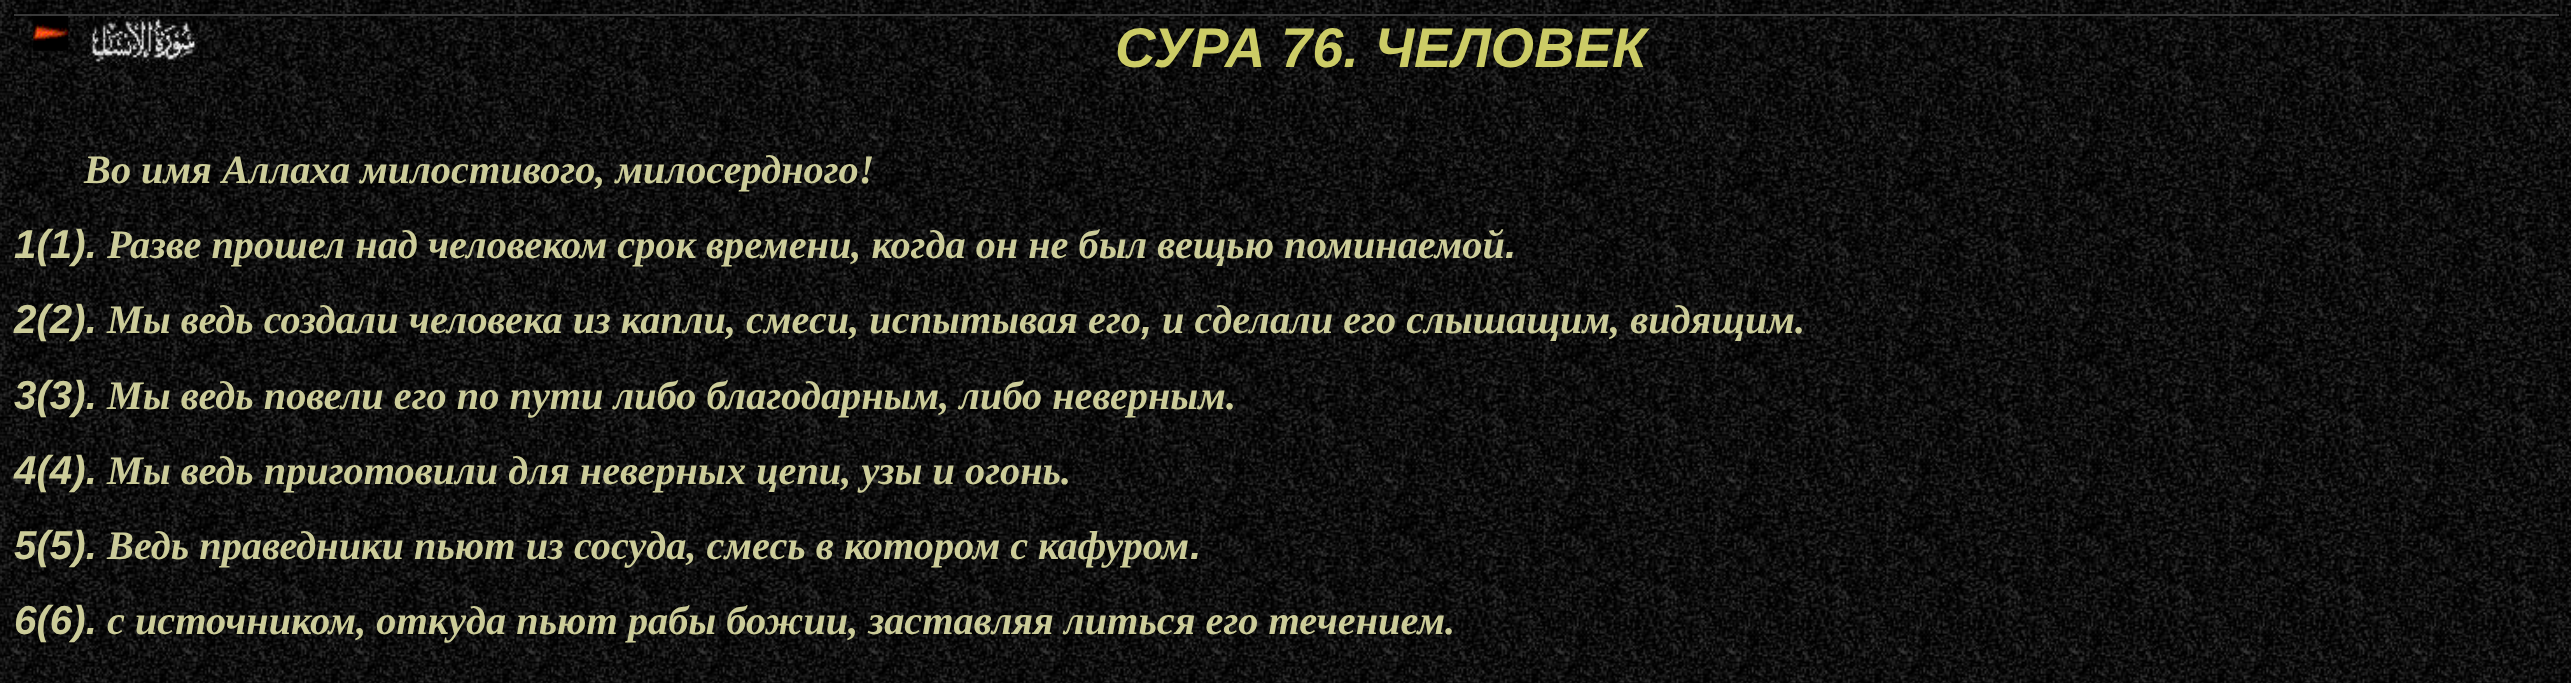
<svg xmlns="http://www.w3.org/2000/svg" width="2571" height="683">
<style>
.a{font:italic bold 56px Liberation Sans;fill:#cc6}
.b{font:italic bold 40.3px Liberation Serif;fill:#cc9}
.c{font:italic bold 40.3px Liberation Sans;fill:#cc9}
</style>
<rect width="100%" height="100%" fill="#fff"/>
<image href="1.png" x="0" y="0" width="2571" height="683"/>
<path fill="#393939" d="M14 14h2545v2H14z"/>
<image href="2.png" x="33" y="16" width="36" height="35"/>
<image href="3.png" x="87" y="16" width="111" height="47"/>
<text class="a" x="1115" y="67">СУРА 76. ЧЕЛОВЕК</text>
<text class="b" x="84" y="183">Во имя Аллаха милостивого, милосердного!</text>
<text class="c" x="14" y="258">1(1).</text>
<text class="b" x="107" y="258">Разве прошел над человеком срок времени, когда он не был вещью поминаемой</text>
<text class="c" x="1505" y="258">.</text>
<text class="c" x="14" y="333">2(2).</text>
<text class="b" x="107" y="333">Мы ведь создали человека из капли, смеси, испытывая его</text>
<text class="c" x="1141" y="333">,</text>
<text class="b" x="1162" y="333">и сделали его слышащим, видящим.</text>
<text class="c" x="14" y="409">3(3).</text>
<text class="b" x="107" y="409">Мы ведь повели его по пути либо благодарным, либо неверным.</text>
<text class="c" x="14" y="484">4(4).</text>
<text class="b" x="107" y="484">Мы ведь приготовили для неверных цепи, узы и огонь.</text>
<text class="c" x="14" y="559">5(5).</text>
<text class="b" x="107" y="559">Ведь праведники пьют из сосуда, смесь в котором с</text>
<text class="b" x="1038" y="559">кафуром</text>
<text class="c" x="1190" y="559">.</text>
<text class="c" x="14" y="634">6(6).</text>
<text class="b" x="107" y="634">с источником, откуда пьют рабы божии, заставляя литься его течением.</text>
</svg>
